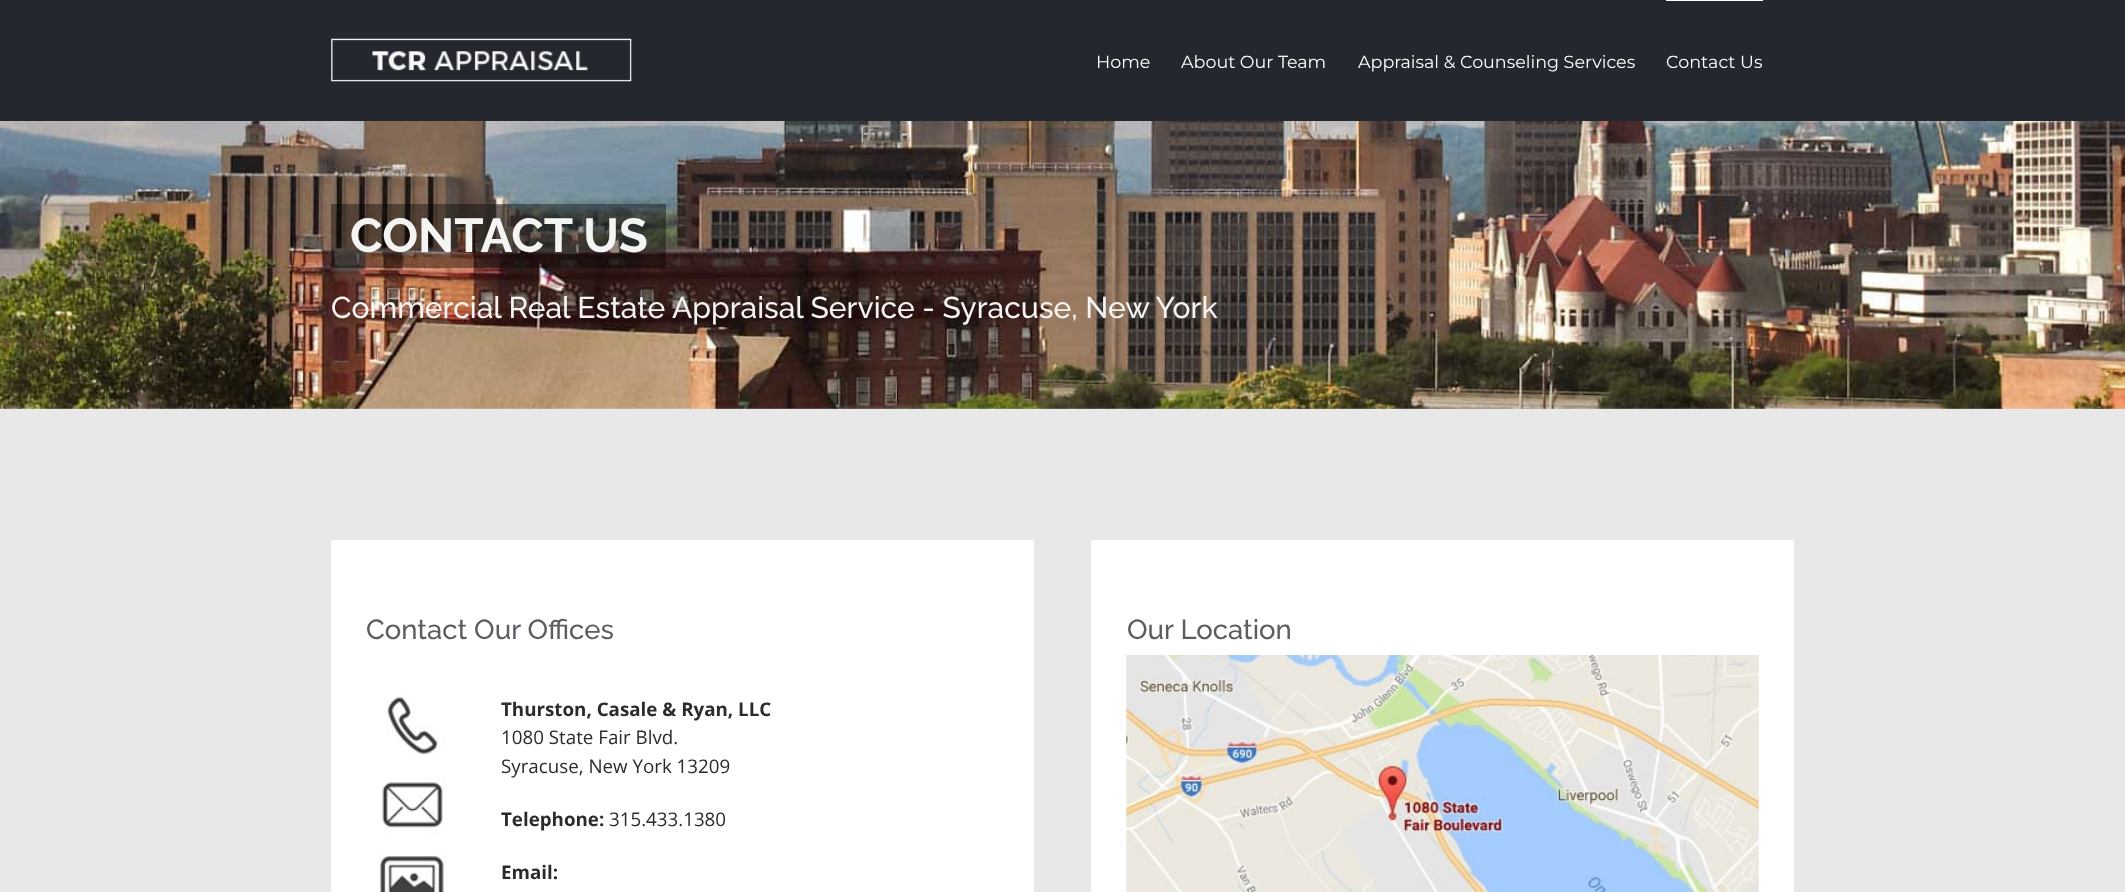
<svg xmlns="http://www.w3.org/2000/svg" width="2125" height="892">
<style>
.a{font:100 17.5px Montserrat;fill:#fff}
.b{font:bold 47.5px Raleway;fill:#f4f4f3}
.c{font:500 30px Raleway;fill:#f4f4f3}
.d{font:500 27.5px Raleway;fill:#5a5d62}
.e{font:bold 18.75px Open Sans;fill:#2b2b2b}
.f{font:18.75px Open Sans;fill:#2b2b2b}
</style>
<rect width="100%" height="100%" fill="#fff"/>
<path fill="#24272d" d="M0 0h2125v121H0z"/>
<image href="1.png" x="331" y="38" width="301" height="44"/>
<path fill="#fff" d="M1666 0h97v1H1666z"/>
<image href="2.png" x="0" y="121" width="2125" height="288"/>
<path fill="#00000061" d="M331 204h335v64H331z"/>
<path fill="#e8e8e8" d="M0 409h2125v483H0z"/>
<path fill="#fff" d="M331 540h703v352H331z"/>
<image href="3.png" x="377" y="695" width="69" height="197"/>
<path fill="#fff" d="M1091 540h703v352H1091z"/>
<image href="4.png" x="1126" y="655" width="633" height="237"/>
<text class="a" x="1096" y="68">Home</text>
<text class="a" x="1181" y="68">About Our Team</text>
<text class="a" x="1358" y="68">Appraisal &amp; Counseling Services</text>
<text class="a" x="1666" y="68">Contact Us</text>
<text class="b" x="350" y="252">CONTACT US</text>
<text class="c" x="331" y="318">Commercial Real Estate Appraisal Service - Syracuse, New York</text>
<text class="d" x="366" y="639">Contact Our Offices</text>
<text class="e" x="501" y="716">Thurston, Casale &amp; Ryan, LLC</text>
<text class="f" x="501" y="744">1080 State Fair Blvd.</text>
<text class="f" x="501" y="773">Syracuse, New York 13209</text>
<text class="e" x="501" y="826">Telephone:</text>
<text class="f" x="609" y="826">315.433.1380</text>
<text class="e" x="501" y="879">Email:</text>
<text class="d" x="1127" y="639">Our Location</text>
</svg>
